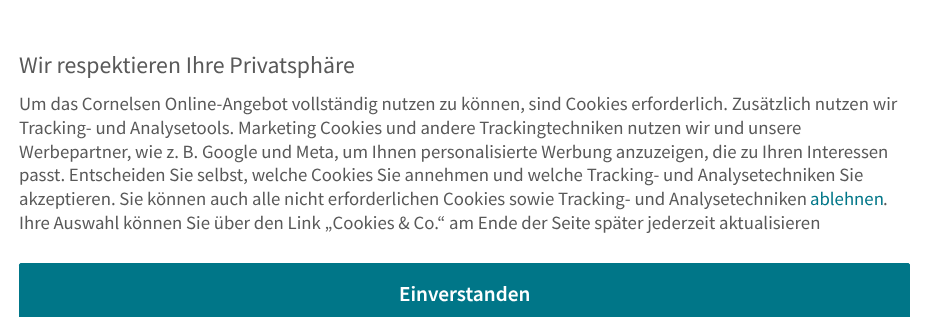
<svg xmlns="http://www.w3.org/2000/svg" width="928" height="317">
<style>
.a{font:23.75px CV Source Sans;fill:#595959}
.b{font:18.75px CV Source Sans;fill:#595959}
.c{font:18.75px CV Source Sans;fill:#007688}
.d{font:600 21.25px CV Source Sans;fill:#fff}
</style>
<rect width="100%" height="100%" fill="#fff"/>
<path fill="#007688" d="M21.5 263h886c1.5 0 2.5 1 2.5 2.5v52.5h-891v-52.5c0-1.5 1-2.5 2.5-2.5z"/>
<rect fill="none" stroke="#007688" x="19.5" y="263.5" width="890" height="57" rx="2"/>
<text class="a" x="19" y="73">Wir respektieren Ihre Privatsphäre</text>
<text class="b" x="19" y="110">Um das Cornelsen Online-Angebot vollständig nutzen zu können, sind Cookies erforderlich. Zusätzlich nutzen wir</text>
<text class="b" x="19" y="134">Tracking- und Analysetools. Marketing Cookies und andere Trackingtechniken nutzen wir und unsere</text>
<text class="b" x="19" y="158">Werbepartner, wie z. B. Google und Meta, um Ihnen personalisierte Werbung anzuzeigen, die zu Ihren Interessen</text>
<text class="b" x="19" y="181">passt. Entscheiden Sie selbst, welche Cookies Sie annehmen und welche Tracking- und Analysetechniken Sie</text>
<text class="b" x="19" y="205">akzeptieren. Sie können auch alle nicht erforderlichen Cookies sowie Tracking- und Analysetechniken</text>
<text class="c" x="810" y="205">ablehnen</text>
<text class="b" x="883" y="205">.</text>
<text class="b" x="19" y="229">Ihre Auswahl können Sie über den Link „Cookies &amp; Co.“ am Ende der Seite später jederzeit aktualisieren</text>
<text class="d" x="399" y="301">Einverstanden</text>
</svg>
